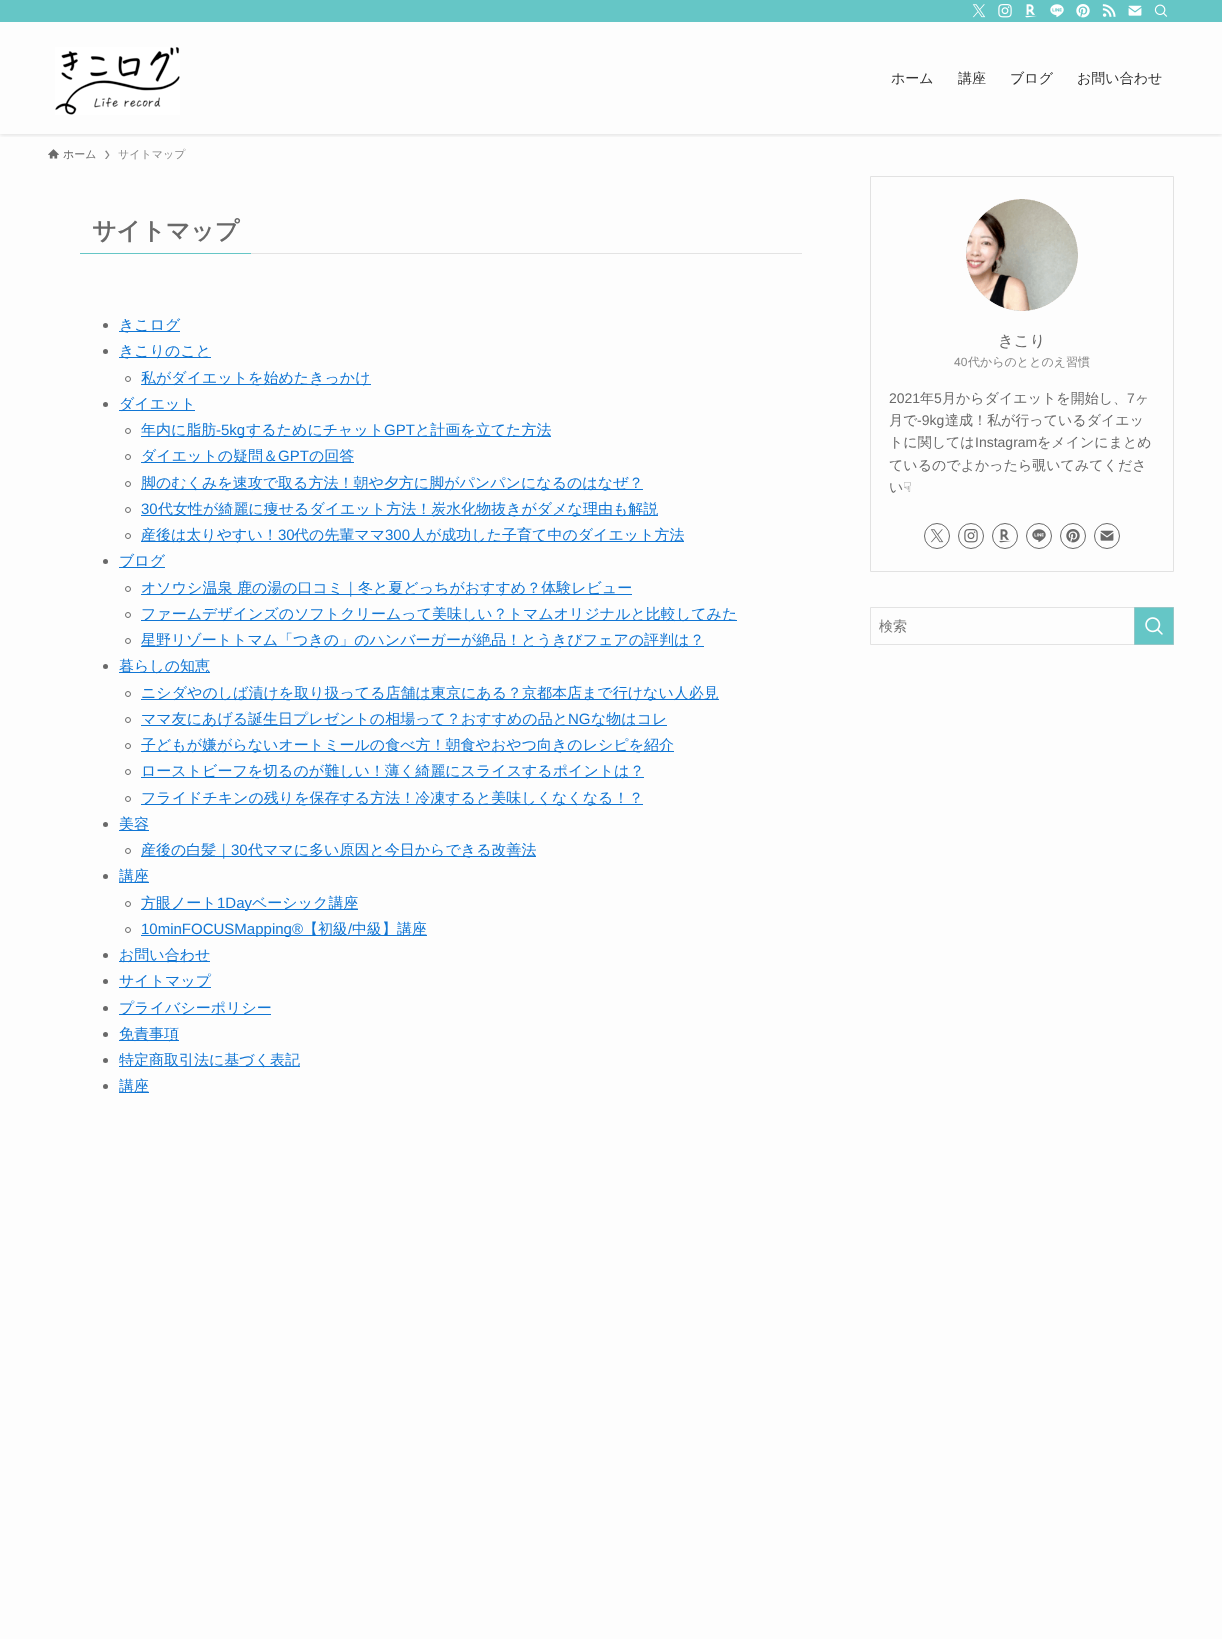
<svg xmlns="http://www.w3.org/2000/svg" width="1222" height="1639">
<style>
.a{font:500 14px WenQuanYi Zen Hei;fill:#333}
.b{font:500 11px WenQuanYi Zen Hei;fill:#696969}
.c{font:500 11px WenQuanYi Zen Hei;fill:#878787}
.d{font:bold 24px WenQuanYi Zen Hei;fill:#696969}
.e{font:500 15px WenQuanYi Zen Hei;fill:#1176d4}
.f{font:15px Liberation Sans;fill:#1176d4}
.g{font:500 15.5px WenQuanYi Zen Hei;fill:#696969}
.h{font:12px Liberation Sans;fill:#878787}
.i{font:500 12px WenQuanYi Zen Hei;fill:#878787}
.j{font:14px Liberation Sans;fill:#696969}
.k{font:500 14px WenQuanYi Zen Hei;fill:#696969}
.l{font:14px DejaVu Sans;fill:#696969}
.m{font:500 14px WenQuanYi Zen Hei;fill:#757575}
</style>
<defs>
<clipPath id="clip1"><path d="M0 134h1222v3H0z"/></clipPath>
</defs>
<rect width="100%" height="100%" fill="#fdfdfd"/>
<g clip-path="url(#clip1)">
<path fill="#0000001f" filter="blur(2px)" d="M0 1h1222v134H0z"/>
</g>
<path fill="#65c6c6" d="M0 0h1222v22H0z"/>
<image href="1.png" x="972" y="4" width="14" height="14"/>
<image href="2.png" x="998" y="4" width="14" height="14"/>
<image href="3.png" x="1025" y="4" width="12" height="14"/>
<image href="4.png" x="1050" y="4" width="14" height="14"/>
<image href="5.png" x="1076" y="4" width="14" height="14"/>
<image href="6.png" x="1102" y="4" width="14" height="13"/>
<image href="7.png" x="1128" y="5" width="14" height="11"/>
<image href="8.png" x="1154" y="4" width="14" height="13"/>
<image href="9.png" x="55" y="47" width="125" height="68"/>
<image href="10.png" x="48" y="149" width="11" height="10"/>
<path fill="#878787" d="M106.5 150.5l-1.5 .5l3 4l-3 4h1.5l3-4z"/>
<path fill="#e3e3e3" d="M251 253h551v1H251z"/>
<path fill="#65c6c6" d="M80 253h171v1H80z"/>
<circle fill="#696969" cx="105.5" cy="325.5" r="2.5"/>
<path fill="#1176d4" d="M119 331h61v1H119z"/>
<circle fill="#696969" cx="105.5" cy="351.5" r="2.5"/>
<path fill="#1176d4" d="M119 357h92v1H119z"/>
<circle fill="none" stroke="#696969" cx="128" cy="379" r="2.5"/>
<path fill="#1176d4" d="M141 384h230v1H141z"/>
<circle fill="#696969" cx="105.5" cy="404.5" r="2.5"/>
<path fill="#1176d4" d="M119 410h76v1H119z"/>
<circle fill="none" stroke="#696969" cx="128" cy="431" r="2.5"/>
<path fill="#1176d4" d="M141 436h410v1H141z"/>
<circle fill="none" stroke="#696969" cx="128" cy="457" r="2.5"/>
<path fill="#1176d4" d="M141 462h213v1H141z"/>
<circle fill="none" stroke="#696969" cx="128" cy="484" r="2.5"/>
<path fill="#1176d4" d="M141 489h502v1H141z"/>
<circle fill="none" stroke="#696969" cx="128" cy="510" r="2.5"/>
<path fill="#1176d4" d="M141 515h517v1H141z"/>
<circle fill="none" stroke="#696969" cx="128" cy="536" r="2.5"/>
<path fill="#1176d4" d="M141 541h543v1H141z"/>
<circle fill="#696969" cx="105.5" cy="561.5" r="2.5"/>
<path fill="#1176d4" d="M119 567h46v1H119z"/>
<circle fill="none" stroke="#696969" cx="128" cy="589" r="2.5"/>
<path fill="#1176d4" d="M141 594h491v1H141z"/>
<circle fill="none" stroke="#696969" cx="128" cy="615" r="2.5"/>
<path fill="#1176d4" d="M141 620h596v1H141z"/>
<circle fill="none" stroke="#696969" cx="128" cy="641" r="2.5"/>
<path fill="#1176d4" d="M141 646h563v1H141z"/>
<circle fill="#696969" cx="105.5" cy="666.5" r="2.5"/>
<path fill="#1176d4" d="M119 672h91v1H119z"/>
<circle fill="none" stroke="#696969" cx="128" cy="694" r="2.5"/>
<path fill="#1176d4" d="M141 699h578v1H141z"/>
<circle fill="none" stroke="#696969" cx="128" cy="720" r="2.5"/>
<path fill="#1176d4" d="M141 725h526v1H141z"/>
<circle fill="none" stroke="#696969" cx="128" cy="746" r="2.5"/>
<path fill="#1176d4" d="M141 751h533v1H141z"/>
<circle fill="none" stroke="#696969" cx="128" cy="772" r="2.5"/>
<path fill="#1176d4" d="M141 777h503v1H141z"/>
<circle fill="none" stroke="#696969" cx="128" cy="799" r="2.5"/>
<path fill="#1176d4" d="M141 804h502v1H141z"/>
<circle fill="#696969" cx="105.5" cy="824.5" r="2.5"/>
<path fill="#1176d4" d="M119 830h30v1H119z"/>
<circle fill="none" stroke="#696969" cx="128" cy="851" r="2.5"/>
<path fill="#1176d4" d="M141 856h395v1H141z"/>
<circle fill="#696969" cx="105.5" cy="876.5" r="2.5"/>
<path fill="#1176d4" d="M119 882h30v1H119z"/>
<circle fill="none" stroke="#696969" cx="128" cy="904" r="2.5"/>
<path fill="#1176d4" d="M141 909h217v1H141z"/>
<circle fill="none" stroke="#696969" cx="128" cy="930" r="2.5"/>
<path fill="#1176d4" d="M141 935h286v1H141z"/>
<circle fill="#696969" cx="105.5" cy="955.5" r="2.5"/>
<path fill="#1176d4" d="M119 961h91v1H119z"/>
<circle fill="#696969" cx="105.5" cy="981.5" r="2.5"/>
<path fill="#1176d4" d="M119 987h92v1H119z"/>
<circle fill="#696969" cx="105.5" cy="1008.5" r="2.5"/>
<path fill="#1176d4" d="M119 1014h152v1H119z"/>
<circle fill="#696969" cx="105.5" cy="1034.5" r="2.5"/>
<path fill="#1176d4" d="M119 1040h60v1H119z"/>
<circle fill="#696969" cx="105.5" cy="1060.5" r="2.5"/>
<path fill="#1176d4" d="M119 1066h181v1H119z"/>
<circle fill="#696969" cx="105.5" cy="1086.5" r="2.5"/>
<path fill="#1176d4" d="M119 1092h30v1H119z"/>
<path fill="none" stroke="#e2e2e2" d="M870.5 176.5h303v395H870.5z"/>
<image href="11.png" x="966" y="199" width="112" height="112"/>
<circle fill="none" stroke="#696969" cx="937" cy="536" r="12.5"/>
<image href="12.png" x="930" y="529" width="14" height="14"/>
<circle fill="none" stroke="#696969" cx="971" cy="536" r="12.5"/>
<image href="13.png" x="964" y="529" width="14" height="14"/>
<circle fill="none" stroke="#696969" cx="1005" cy="536" r="12.5"/>
<image href="14.png" x="999" y="529" width="12" height="14"/>
<circle fill="none" stroke="#696969" cx="1039" cy="536" r="12.5"/>
<image href="15.png" x="1032" y="529" width="14" height="14"/>
<circle fill="none" stroke="#696969" cx="1073" cy="536" r="12.5"/>
<image href="16.png" x="1066" y="529" width="14" height="14"/>
<circle fill="none" stroke="#696969" cx="1107" cy="536" r="12.5"/>
<image href="17.png" x="1100" y="530" width="14" height="11"/>
<path fill="none" stroke="#e3e3e3" d="M870.5 607.5h303v37H870.5z"/>
<path fill="#65c6c6" stroke="#96c7c7" d="M1134.5 607.5h39v37H1134.5z"/>
<image href="18.png" x="1145" y="617" width="18" height="18"/>
<text class="a" x="891" y="83">ホーム</text>
<text class="a" x="958" y="83">講座</text>
<text class="a" x="1010" y="83">ブログ</text>
<text class="a" x="1077" y="83">お問い合わせ</text>
<text class="b" x="63" y="158">ホーム</text>
<text class="c" x="118" y="158">サイトマップ</text>
<text class="d" x="92" y="239">サイトマップ</text>
<text class="e" x="119" y="330">きこログ</text>
<text class="e" x="119" y="356">きこりのこと</text>
<text class="e" x="141" y="383">私がダイエットを始めたきっかけ</text>
<text class="e" x="119" y="409">ダイエット</text>
<text class="e" x="141" y="435">年内に脂肪</text>
<text class="f" x="216" y="435">-5kg</text>
<text class="e" x="246" y="435">するためにチャット</text>
<text class="f" x="384" y="435">GPT</text>
<text class="e" x="415" y="435">と計画を立てた方法</text>
<text class="e" x="141" y="461">ダイエットの疑問＆</text>
<text class="f" x="278" y="461">GPT</text>
<text class="e" x="309" y="461">の回答</text>
<text class="e" x="141" y="488">脚のむくみを速攻で取る方法！朝や夕方に脚がパンパンになるのはなぜ？</text>
<text class="f" x="141" y="514">30</text>
<text class="e" x="158" y="514">代女性が綺麗に痩せるダイエット方法！炭水化物抜きがダメな理由も解説</text>
<text class="e" x="141" y="540">産後は太りやすい！</text>
<text class="f" x="278" y="540">30</text>
<text class="e" x="294" y="540">代の先輩ママ</text>
<text class="f" x="385" y="540">300</text>
<text class="e" x="411" y="540">人が成功した子育て中のダイエット方法</text>
<text class="e" x="119" y="566">ブログ</text>
<text class="e" x="141" y="593">オソウシ温泉 鹿の湯の口コミ｜冬と夏どっちがおすすめ？体験レビュー</text>
<text class="e" x="141" y="619">ファームデザインズのソフトクリームって美味しい？トマムオリジナルと比較してみた</text>
<text class="e" x="141" y="645">星野リゾートトマム「つきの」のハンバーガーが絶品！とうきびフェアの評判は？</text>
<text class="e" x="119" y="671">暮らしの知恵</text>
<text class="e" x="141" y="698">ニシダやのしば漬けを取り扱ってる店舗は東京にある？京都本店まで行けない人必見</text>
<text class="e" x="141" y="724">ママ友にあげる誕生日プレゼントの相場って？おすすめの品と</text>
<text class="f" x="568" y="724">NG</text>
<text class="e" x="591" y="724">な物はコレ</text>
<text class="e" x="141" y="750">子どもが嫌がらないオートミールの食べ方！朝食やおやつ向きのレシピを紹介</text>
<text class="e" x="141" y="776">ローストビーフを切るのが難しい！薄く綺麗にスライスするポイントは？</text>
<text class="e" x="141" y="803">フライドチキンの残りを保存する方法！冷凍すると美味しくなくなる！？</text>
<text class="e" x="119" y="829">美容</text>
<text class="e" x="141" y="855">産後の白髪｜</text>
<text class="f" x="231" y="855">30</text>
<text class="e" x="248" y="855">代ママに多い原因と今日からできる改善法</text>
<text class="e" x="119" y="881">講座</text>
<text class="e" x="141" y="908">方眼ノート</text>
<text class="f" x="217" y="908">1Day</text>
<text class="e" x="252" y="908">ベーシック講座</text>
<text class="f" x="141" y="934">10minFOCUSMapping®</text>
<text class="e" x="303" y="934">【初級</text>
<text class="f" x="348" y="934">/</text>
<text class="e" x="352" y="934">中級】講座</text>
<text class="e" x="119" y="960">お問い合わせ</text>
<text class="e" x="119" y="986">サイトマップ</text>
<text class="e" x="119" y="1013">プライバシーポリシー</text>
<text class="e" x="119" y="1039">免責事項</text>
<text class="e" x="119" y="1065">特定商取引法に基づく表記</text>
<text class="e" x="119" y="1091">講座</text>
<text class="g" x="998" y="346">きこり</text>
<text class="h" x="954" y="366">40</text>
<text class="i" x="968" y="366">代からのととのえ習慣</text>
<text class="j" x="889" y="403">2021</text>
<text class="k" x="920" y="403">年</text>
<text class="j" x="934" y="403">5</text>
<text class="k" x="942" y="403">月からダイエットを開始し、</text>
<text class="j" x="1127" y="403">7</text>
<text class="k" x="1135" y="403">ヶ</text>
<text class="k" x="889" y="425">月で</text>
<text class="j" x="917" y="425">-9kg</text>
<text class="k" x="945" y="425">達成！私が行っているダイエッ</text>
<text class="k" x="889" y="447">トに関しては</text>
<text class="j" x="975" y="447">Instagram</text>
<text class="k" x="1037" y="447">をメインにまとめ</text>
<text class="k" x="889" y="470">ているのでよかったら覗いてみてくださ</text>
<text class="k" x="889" y="492">い</text>
<text class="l" x="903" y="492">☟</text>
<text class="m" x="879" y="631">検索</text>
</svg>
